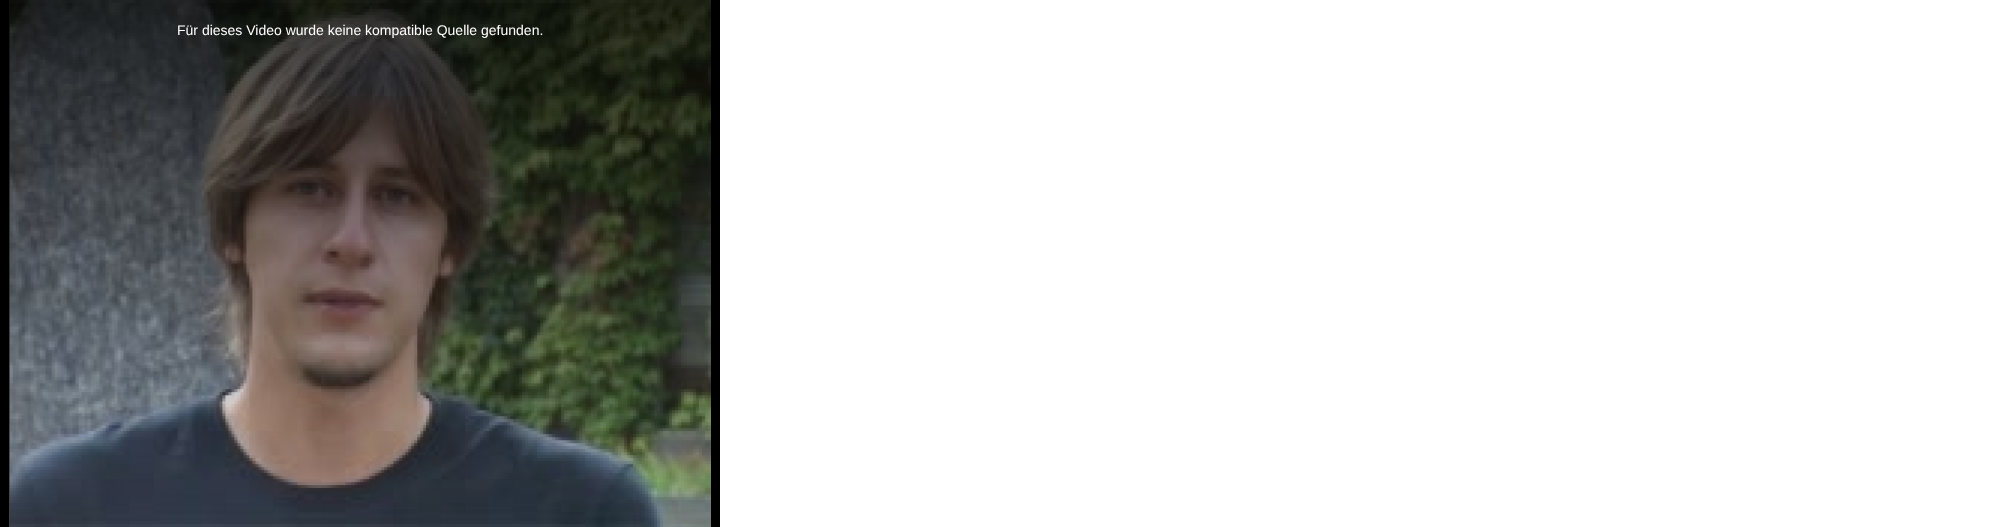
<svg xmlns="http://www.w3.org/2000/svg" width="1997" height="527">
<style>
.a{font:14px Liberation Sans;fill:#fff}
</style>
<defs>
<linearGradient id="g1" gradientUnits="userSpaceOnUse" x1="360" y1="0" x2="360" y2="527"><stop offset="0" stop-color="#000" stop-opacity="0.8"/><stop offset="1" stop-color="#000" stop-opacity="0"/></linearGradient>
</defs>
<rect width="100%" height="100%" fill="#fff"/>
<path fill="#000" d="M0 0h720v527H0z"/>
<image href="1.png" x="9" y="0" width="702" height="527"/>
<path fill="url(#g1)" d="M9 0h702v513H9z"/>
<text class="a" x="177" y="35">Für dieses Video wurde keine kompatible Quelle gefunden.</text>
</svg>
